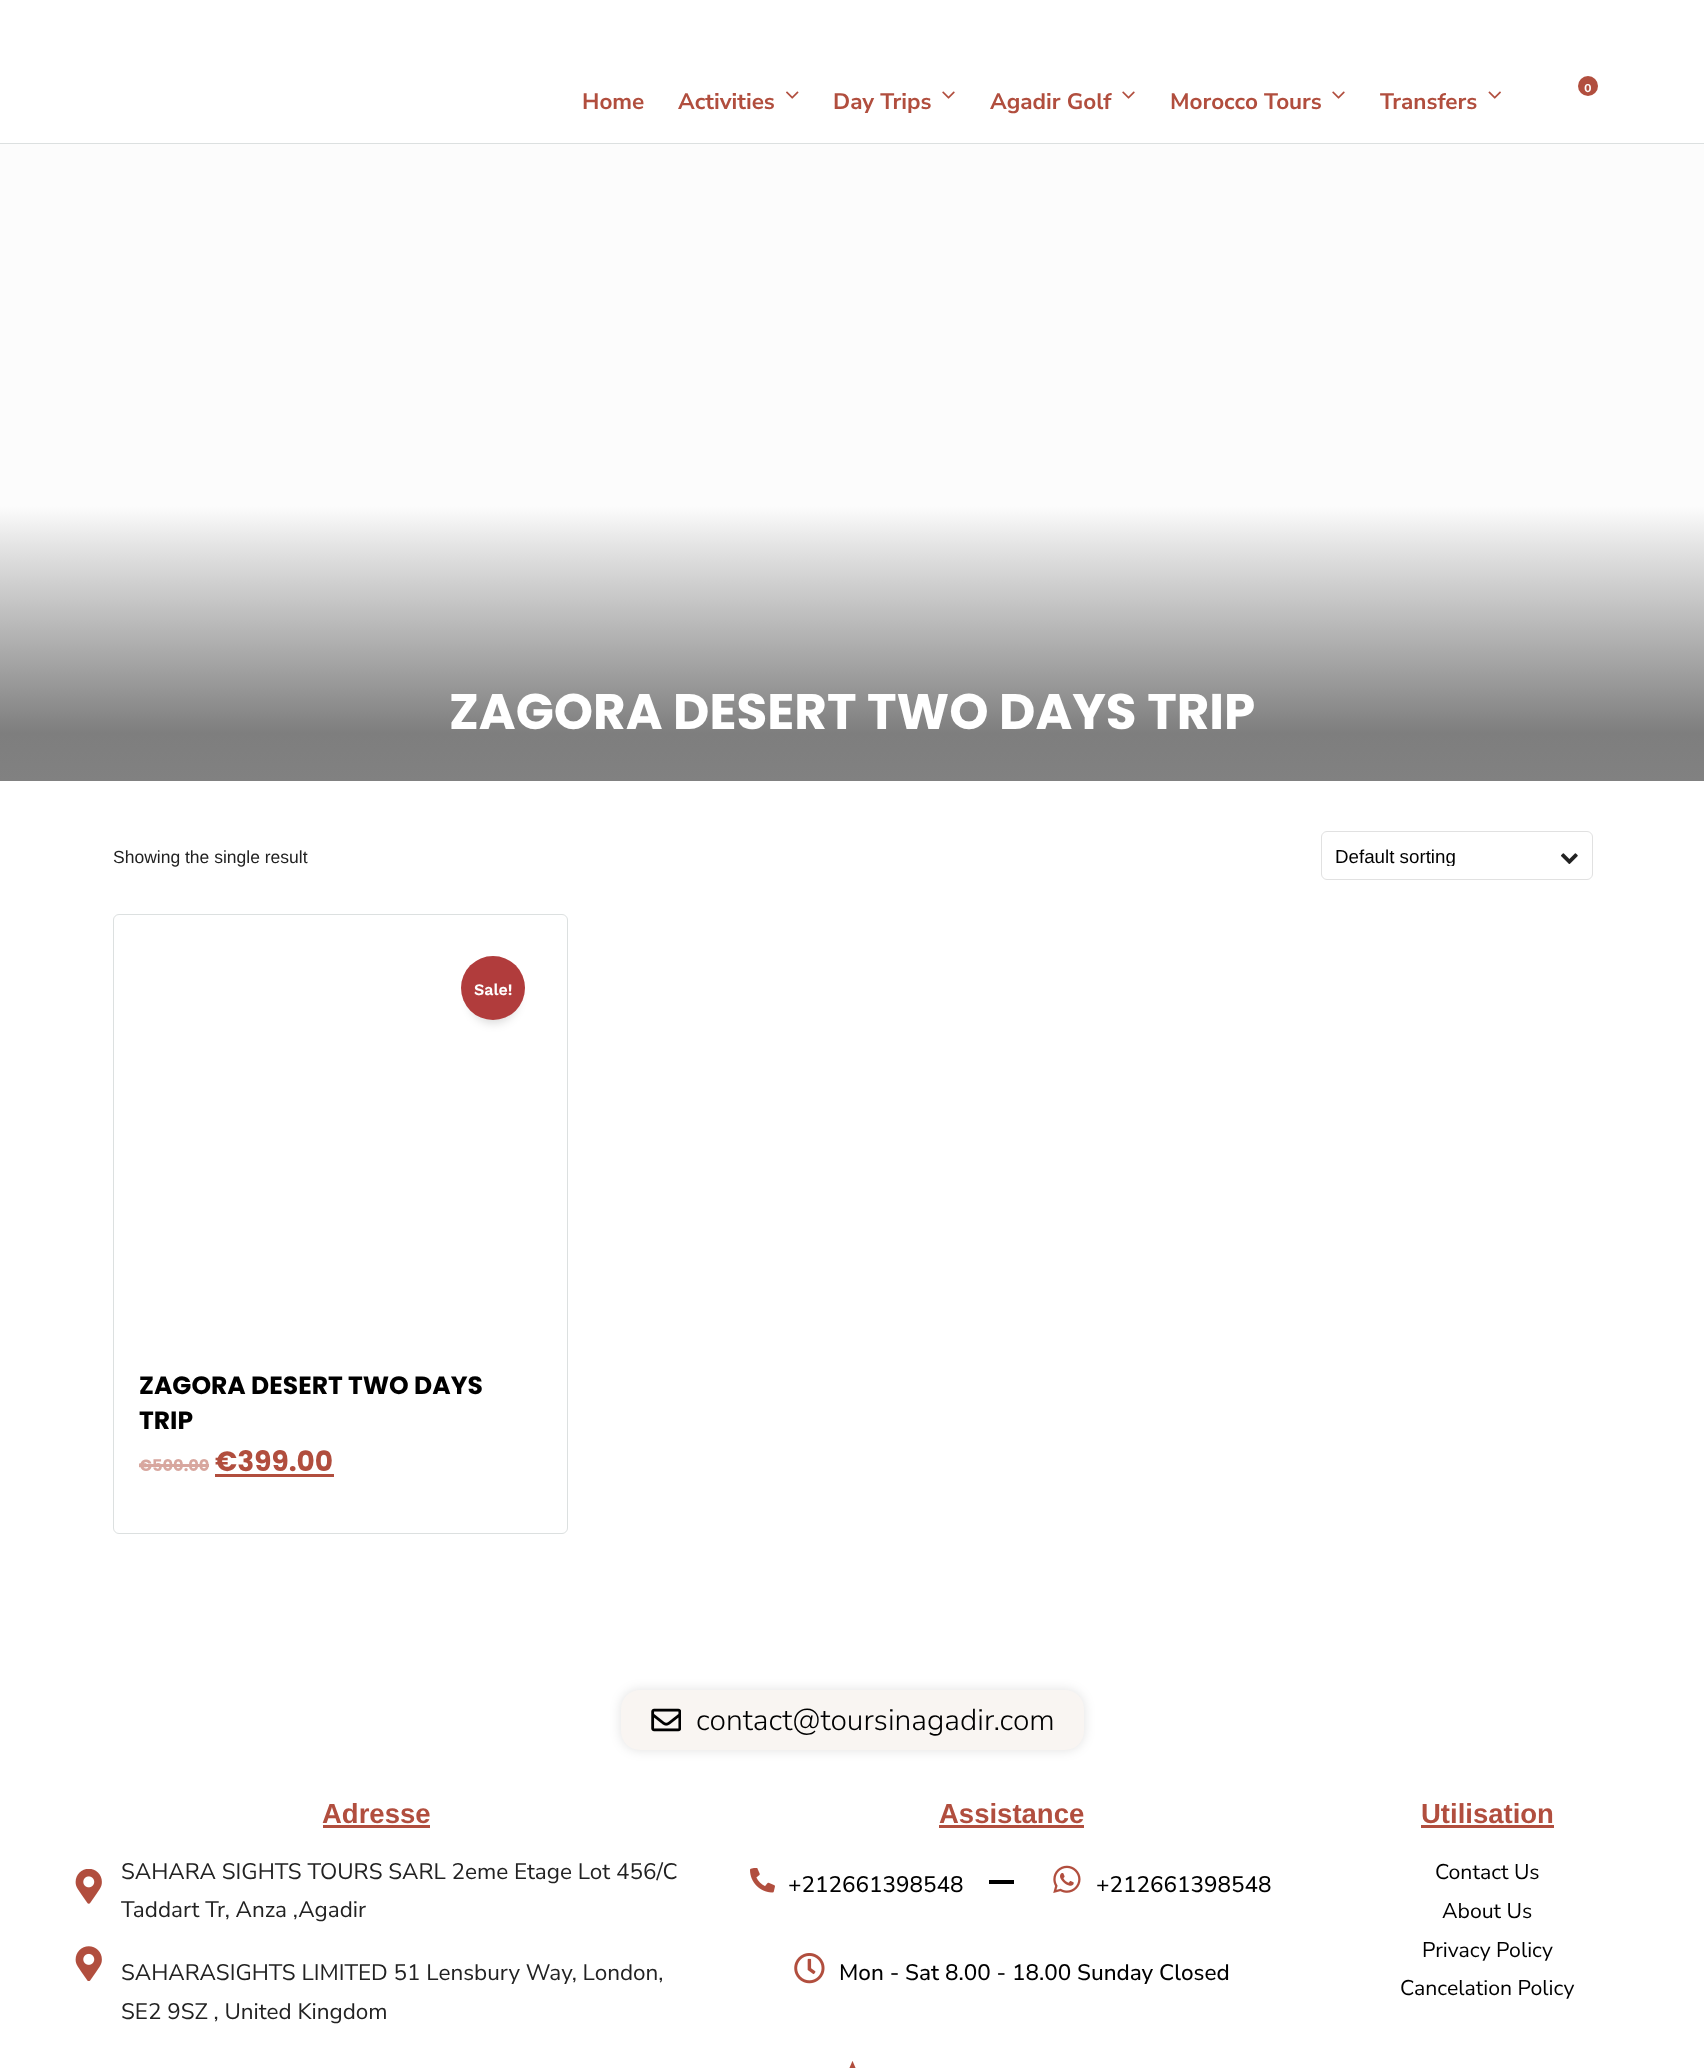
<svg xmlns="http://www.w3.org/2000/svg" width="1704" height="2068">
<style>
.a{font:600 12px Work Sans;fill:#fff}
.b{font:bold 22.5px Nunito Sans;fill:#b14e3e}
.c{font:bold 50px Poppins;fill:#fff}
.d{font:17.5px Liberation Sans;fill:#222}
.e{font:18.75px Liberation Sans;fill:#000}
.f{font:600 16px Work Sans;fill:#fff}
.g{font:bold 25px Poppins;fill:#000}
.h{font:bold 16.25px Poppins;fill:#d8a79f}
.i{font:bold 28px Poppins;fill:#b14e3e}
.j{font:300 30px Nunito Sans;fill:#000}
.k{font:bold 27.5px Liberation Sans;fill:#b14e3e}
.l{font:22.5px Nunito Sans;fill:#222}
.m{font:500 22.5px Nunito Sans;fill:#000}
.n{font:21.25px Nunito Sans;fill:#000}
</style>
<defs>
<linearGradient id="g1" gradientUnits="userSpaceOnUse" x1="853" y1="94" x2="853" y2="781"><stop offset="0" stop-color="#fcfcfc"/><stop offset="0.6" stop-color="#fcfcfc"/><stop offset="0.66" stop-color="#e3e3e3"/><stop offset="0.93" stop-color="#7e7e7e"/><stop offset="1" stop-color="#818181"/></linearGradient>
<clipPath id="clip1"><path d="M1335 845h206v21H1335z"/></clipPath>
</defs>
<rect width="100%" height="100%" fill="#fff"/>
<path fill="#dce0e0" d="M0 143h1704v1H0z"/>
<circle fill="#b14e3e" cx="1588" cy="86" r="10"/>
<image href="1.png" x="786" y="91" width="13" height="8"/>
<image href="2.png" x="942" y="91" width="13" height="8"/>
<image href="2.png" x="1122" y="91" width="13" height="8"/>
<image href="2.png" x="1332" y="91" width="13" height="8"/>
<image href="3.png" x="1488" y="91" width="13" height="8"/>
<path fill="url(#g1)" d="M0 144h1704v637H0z"/>
<rect fill="none" stroke="#e1e1e1" x="1321.5" y="831.5" width="271" height="48" rx="5.5"/>
<image href="4.png" x="1561" y="853" width="17" height="11"/>
<rect fill="none" stroke="#dce0e0" x="113.5" y="914.5" width="454" height="619" rx="5.5"/>
<rect fill="#00000026" filter="blur(5px)" x="469" y="974" width="49" height="49" rx="24.5"/>
<circle fill="#b13c3c" cx="493" cy="988" r="32"/>
<path fill="#d8a79f" d="M139 1464h70v3H139z"/>
<path fill="#b14e3e" d="M215 1474h119v3H215z"/>
<rect fill="#0000001f" filter="blur(6px)" x="621" y="1690" width="463" height="60" rx="19"/>
<rect fill="#f9f5f2" x="621" y="1690" width="463" height="60" rx="19"/>
<image href="5.png" x="651" y="1708" width="30" height="24"/>
<path fill="#b14e3e" d="M323 1825h107v3H323z"/>
<image href="6.png" x="75" y="1869" width="27" height="35"/>
<image href="7.png" x="75" y="1946" width="27" height="35"/>
<path fill="#b14e3e" d="M939 1825h145v3H939z"/>
<image href="8.png" x="750" y="1868" width="25" height="25"/>
<path fill="#000" d="M989 1880h25v4H989z"/>
<image href="9.png" x="1053" y="1865" width="28" height="28"/>
<image href="10.png" x="794" y="1953" width="31" height="31"/>
<path fill="#b14e3e" d="M1421 1825h133v3H1421z"/>
<image href="11.png" x="849" y="2061" width="7" height="7"/>
<text class="a" x="1584" y="92">0</text>
<text class="b" x="582" y="109">Home</text>
<text class="b" x="678" y="109">Activities</text>
<text class="b" x="833" y="109">Day Trips</text>
<text class="b" x="990" y="109">Agadir Golf</text>
<text class="b" x="1170" y="109">Morocco Tours</text>
<text class="b" x="1380" y="109">Transfers</text>
<text class="c" x="449" y="729">ZAGORA DESERT TWO DAYS TRIP</text>
<text class="d" x="113" y="863">Showing the single result</text>
<g clip-path="url(#clip1)">
<text class="e" x="1335" y="863">Default sorting</text>
</g>
<text class="f" x="474" y="995">Sale!</text>
<text class="g" x="139" y="1394">ZAGORA DESERT TWO DAYS</text>
<text class="g" x="139" y="1429">TRIP</text>
<text class="h" x="139" y="1471">€500.00</text>
<text class="i" x="215" y="1471">€399.00</text>
<text class="j" x="696" y="1730">contact@toursinagadir.com</text>
<text class="k" x="322" y="1823">Adresse</text>
<text class="l" x="121" y="1879">SAHARA SIGHTS TOURS SARL 2eme Etage Lot 456/C</text>
<text class="l" x="121" y="1917">Taddart Tr, Anza ,Agadir</text>
<text class="l" x="121" y="1980">SAHARASIGHTS LIMITED 51 Lensbury Way, London,</text>
<text class="l" x="121" y="2019">SE2 9SZ , United Kingdom</text>
<text class="k" x="939" y="1823">Assistance</text>
<text class="m" x="788" y="1892">+212661398548</text>
<text class="m" x="1096" y="1892">+212661398548</text>
<text class="m" x="839" y="1980">Mon - Sat 8.00 - 18.00 Sunday Closed</text>
<text class="k" x="1421" y="1823">Utilisation</text>
<text class="n" x="1435" y="1879">Contact Us</text>
<text class="n" x="1442" y="1918">About Us</text>
<text class="n" x="1422" y="1957">Privacy Policy</text>
<text class="n" x="1400" y="1995">Cancelation Policy</text>
</svg>
